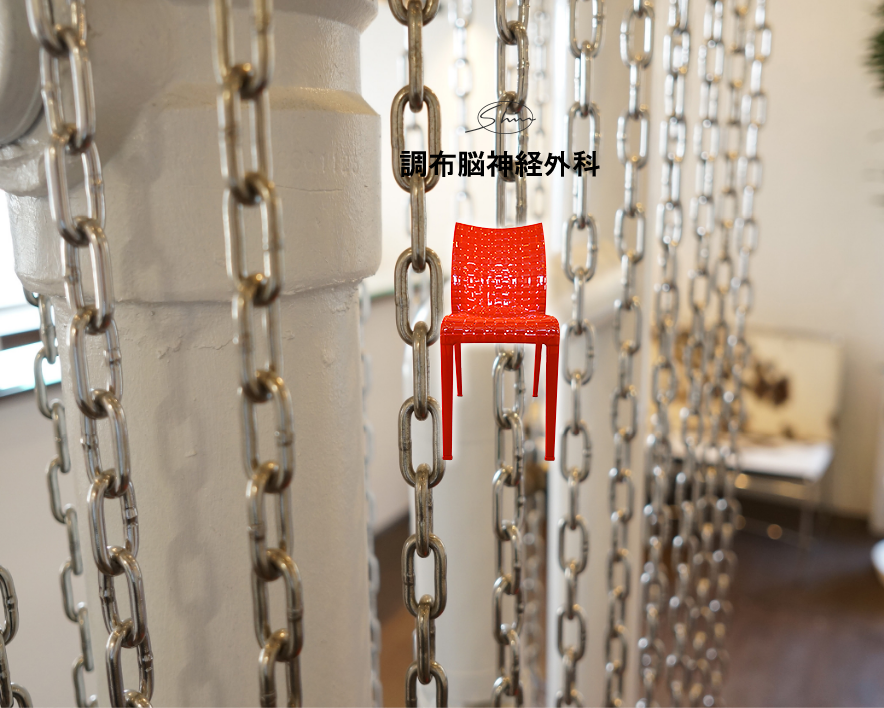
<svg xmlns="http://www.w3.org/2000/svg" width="884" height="708">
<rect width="100%" height="100%" fill="#fff"/>
<image href="1.png" x="0" y="707" width="884" height="1"/>
<image href="2.png" x="0" y="0" width="884" height="708"/>
<image href="3.png" x="465" y="101" width="71" height="33"/>
<image href="4.png" x="400" y="150" width="200" height="27"/>
<image href="5.png" x="430" y="215" width="140" height="256"/>
</svg>
